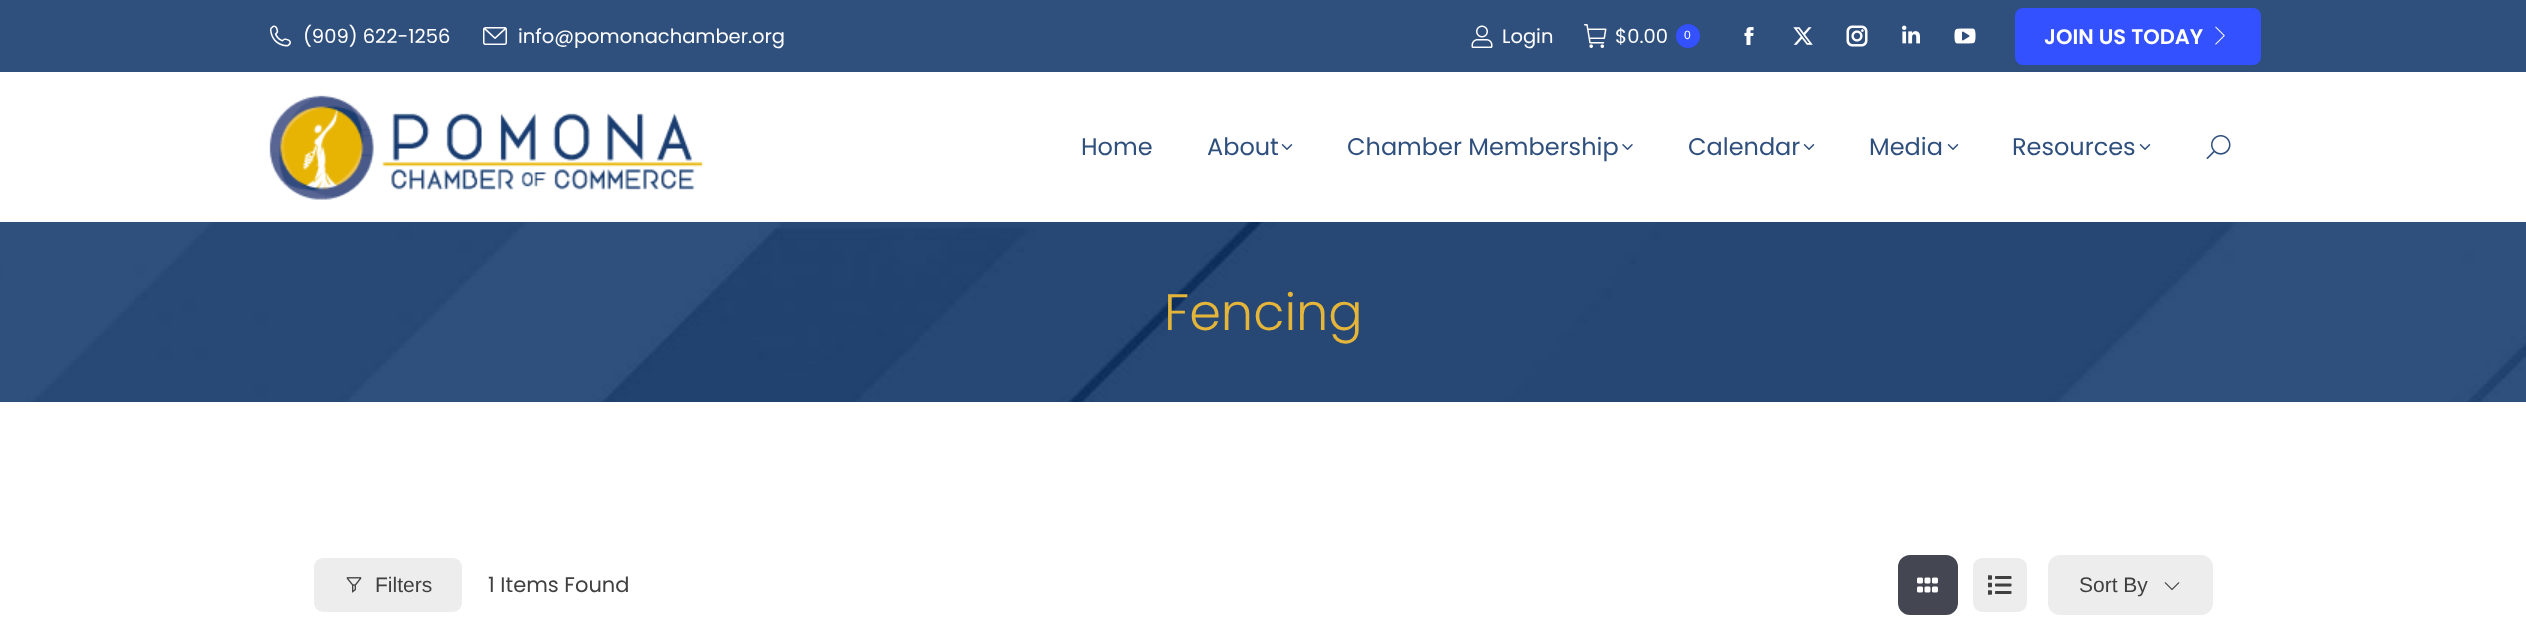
<svg xmlns="http://www.w3.org/2000/svg" width="2526" height="631">
<style>
.a{font:19.5px Poppins;fill:#fff}
.b{font:12px Liberation Sans;fill:#fff}
.c{font:600 21px Poppins;fill:#fff}
.d{font:24px Poppins;fill:#2f4f7d}
.e{font:300 51px Poppins;fill:#e5b53a}
.f{font:21px Liberation Sans;fill:#404040}
.g{font:21px Poppins;fill:#404040}
</style>
<rect width="100%" height="100%" fill="#fff"/>
<path fill="#2f4f7d" d="M0 0h2526v72H0z"/>
<image href="1.png" x="270" y="25" width="21" height="22"/>
<image href="2.png" x="483" y="27" width="24" height="18"/>
<image href="3.png" x="1471" y="25" width="22" height="23"/>
<image href="4.png" x="1584" y="24" width="23" height="24"/>
<circle fill="#3351ff" cx="1688" cy="36" r="12"/>
<image href="5.png" x="1744" y="27" width="10" height="18"/>
<image href="6.png" x="1793" y="27" width="20" height="18"/>
<image href="7.png" x="1846" y="25" width="22" height="22"/>
<image href="8.png" x="1902" y="25" width="18" height="19"/>
<image href="9.png" x="1954" y="28" width="22" height="16"/>
<rect fill="#3351ff" x="2015" y="8" width="246" height="57" rx="8"/>
<image href="10.png" x="2215" y="26" width="10" height="19"/>
<image href="11.png" x="269" y="95" width="434" height="105"/>
<image href="12.png" x="1281" y="144" width="12" height="6"/>
<image href="13.png" x="1622" y="144" width="11" height="6"/>
<image href="12.png" x="1803" y="144" width="12" height="6"/>
<image href="12.png" x="1947" y="144" width="12" height="6"/>
<image href="12.png" x="2139" y="144" width="12" height="6"/>
<image href="14.png" x="2206" y="135" width="25" height="24"/>
<image href="15.png" x="0" y="222" width="2526" height="180"/>
<rect fill="#ededed" stroke="#fff" stroke-width="3" x="312.5" y="556.5" width="151" height="57" rx="10.5"/>
<image href="16.png" x="346" y="577" width="16" height="16"/>
<rect fill="#444752" stroke="#444752" stroke-width="3" x="1899.5" y="556.5" width="57" height="57" rx="10.5"/>
<image href="17.png" x="1917" y="577" width="21" height="16"/>
<rect fill="#ededed" stroke="#fff" stroke-width="3" x="1971.5" y="556.5" width="57" height="57" rx="10.5"/>
<image href="18.png" x="1988" y="575" width="24" height="20"/>
<rect fill="#ededed" stroke="#ededed" stroke-width="2" x="2049" y="556" width="163" height="58" rx="11"/>
<image href="19.png" x="2164" y="582" width="16" height="9"/>
<text class="a" x="303" y="43">(909‌) 622-1256</text>
<text class="a" x="518" y="43">info@pomonachamber.org</text>
<text class="a" x="1502" y="43">Login</text>
<text class="a" x="1615" y="43">$0.00</text>
<text class="b" x="1684" y="39">0</text>
<text class="c" x="2044" y="44">JOIN US TODAY</text>
<text class="d" x="1081" y="155">Home</text>
<text class="d" x="1207" y="155">About</text>
<text class="d" x="1347" y="155">Chamber Membership</text>
<text class="d" x="1688" y="155">Calendar</text>
<text class="d" x="1869" y="155">Media</text>
<text class="d" x="2012" y="155">Resources</text>
<text class="e" x="1164" y="330">Fencing</text>
<text class="f" x="375" y="592">Filters</text>
<text class="g" x="488" y="592">1 Items Found</text>
<text class="f" x="2079" y="592">Sort By</text>
</svg>
